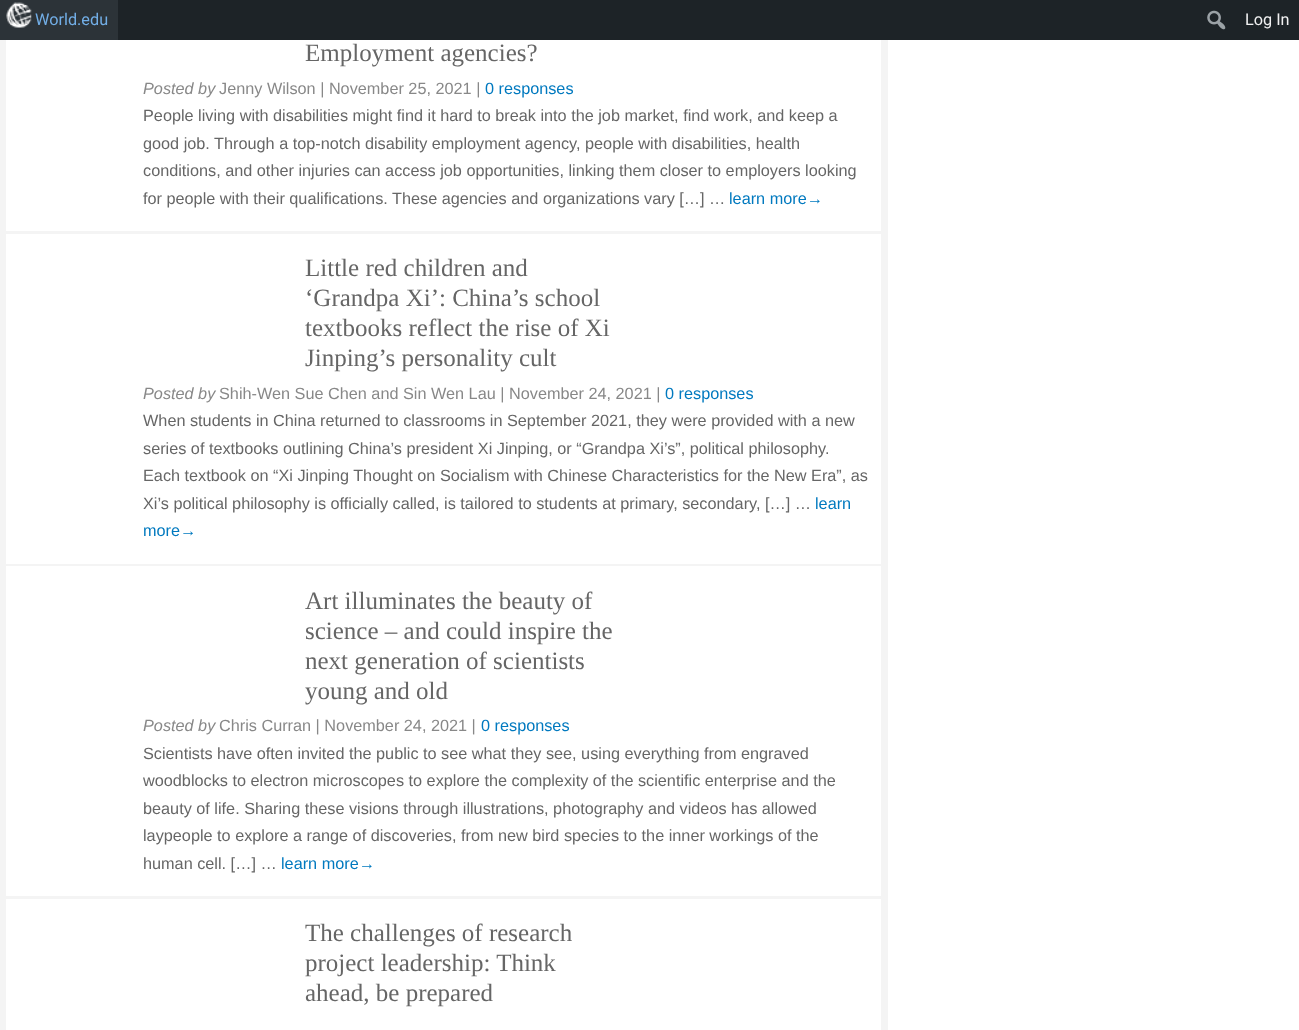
<svg xmlns="http://www.w3.org/2000/svg" width="1299" height="1030">
<style>
.a{font:16.25px Roboto;fill:#72aee6}
.b{font:16.25px Roboto;fill:#f0f0f1}
.c{font:25px Liberation Serif;fill:#666}
.d{font:italic 16.25px Liberation Sans;fill:#888}
.e{font:16.25px Liberation Sans;fill:#888}
.f{font:16.25px Liberation Sans;fill:#0079bf}
.g{font:16.25px Liberation Sans;fill:#666}
</style>
<rect width="100%" height="100%" fill="#fff"/>
<path fill="#1d2327" d="M118 0h1181v40H118z"/>
<image href="1.png" x="1207" y="10" width="19" height="20"/>
<path fill="#2c3338" d="M0 0h118v40H0z"/>
<image href="2.png" x="6" y="2" width="26" height="26"/>
<path fill="#f4f4f4" d="M0 40h888v990H0z"/>
<path fill="#fff" d="M6 40h875v191H6z"/>
<path fill="#fff" d="M6 234h875v330H6z"/>
<path fill="#fff" d="M6 566h875v330H6z"/>
<path fill="#fff" d="M6 899h875v131H6z"/>
<text class="a" x="35" y="25">World.edu</text>
<text class="b" x="1245" y="25">Log In</text>
<text class="c" x="305" y="61">Employment agencies?</text>
<text class="d" x="143" y="94">Posted by</text>
<text class="e" x="219" y="94">Jenny Wilson | November 25, 2021 |</text>
<text class="f" x="485" y="94">0 responses</text>
<text class="g" x="143" y="121">People living with disabilities might find it hard to break into the job market, find work, and keep a</text>
<text class="g" x="143" y="149">good job. Through a top-notch disability employment agency, people with disabilities, health</text>
<text class="g" x="143" y="176">conditions, and other injuries can access job opportunities, linking them closer to employers looking</text>
<text class="g" x="143" y="204">for people with their qualifications. These agencies and organizations vary […] …</text>
<text class="f" x="729" y="204">learn more→</text>
<text class="c" x="305" y="276">Little red children and</text>
<text class="c" x="305" y="306">‘Grandpa Xi’: China’s school</text>
<text class="c" x="305" y="336">textbooks reflect the rise of Xi</text>
<text class="c" x="305" y="366">Jinping’s personality cult</text>
<text class="d" x="143" y="399">Posted by</text>
<text class="e" x="219" y="399">Shih-Wen Sue Chen and Sin Wen Lau | November 24, 2021 |</text>
<text class="f" x="665" y="399">0 responses</text>
<text class="g" x="143" y="426">When students in China returned to classrooms in September 2021, they were provided with a new</text>
<text class="g" x="143" y="454">series of textbooks outlining China’s president Xi Jinping, or “Grandpa Xi’s”, political philosophy.</text>
<text class="g" x="143" y="481">Each textbook on “Xi Jinping Thought on Socialism with Chinese Characteristics for the New Era”, as</text>
<text class="g" x="143" y="509">Xi’s political philosophy is officially called, is tailored to students at primary, secondary, […] …</text>
<text class="f" x="815" y="509">learn</text>
<text class="f" x="143" y="536">more→</text>
<text class="c" x="305" y="609">Art illuminates the beauty of</text>
<text class="c" x="305" y="639">science – and could inspire the</text>
<text class="c" x="305" y="669">next generation of scientists</text>
<text class="c" x="305" y="699">young and old</text>
<text class="d" x="143" y="731">Posted by</text>
<text class="e" x="219" y="731">Chris Curran | November 24, 2021 |</text>
<text class="f" x="481" y="731">0 responses</text>
<text class="g" x="143" y="759">Scientists have often invited the public to see what they see, using everything from engraved</text>
<text class="g" x="143" y="786">woodblocks to electron microscopes to explore the complexity of the scientific enterprise and the</text>
<text class="g" x="143" y="814">beauty of life. Sharing these visions through illustrations, photography and videos has allowed</text>
<text class="g" x="143" y="841">laypeople to explore a range of discoveries, from new bird species to the inner workings of the</text>
<text class="g" x="143" y="869">human cell. […] …</text>
<text class="f" x="281" y="869">learn more→</text>
<text class="c" x="305" y="941">The challenges of research</text>
<text class="c" x="305" y="971">project leadership: Think</text>
<text class="c" x="305" y="1001">ahead, be prepared</text>
</svg>
